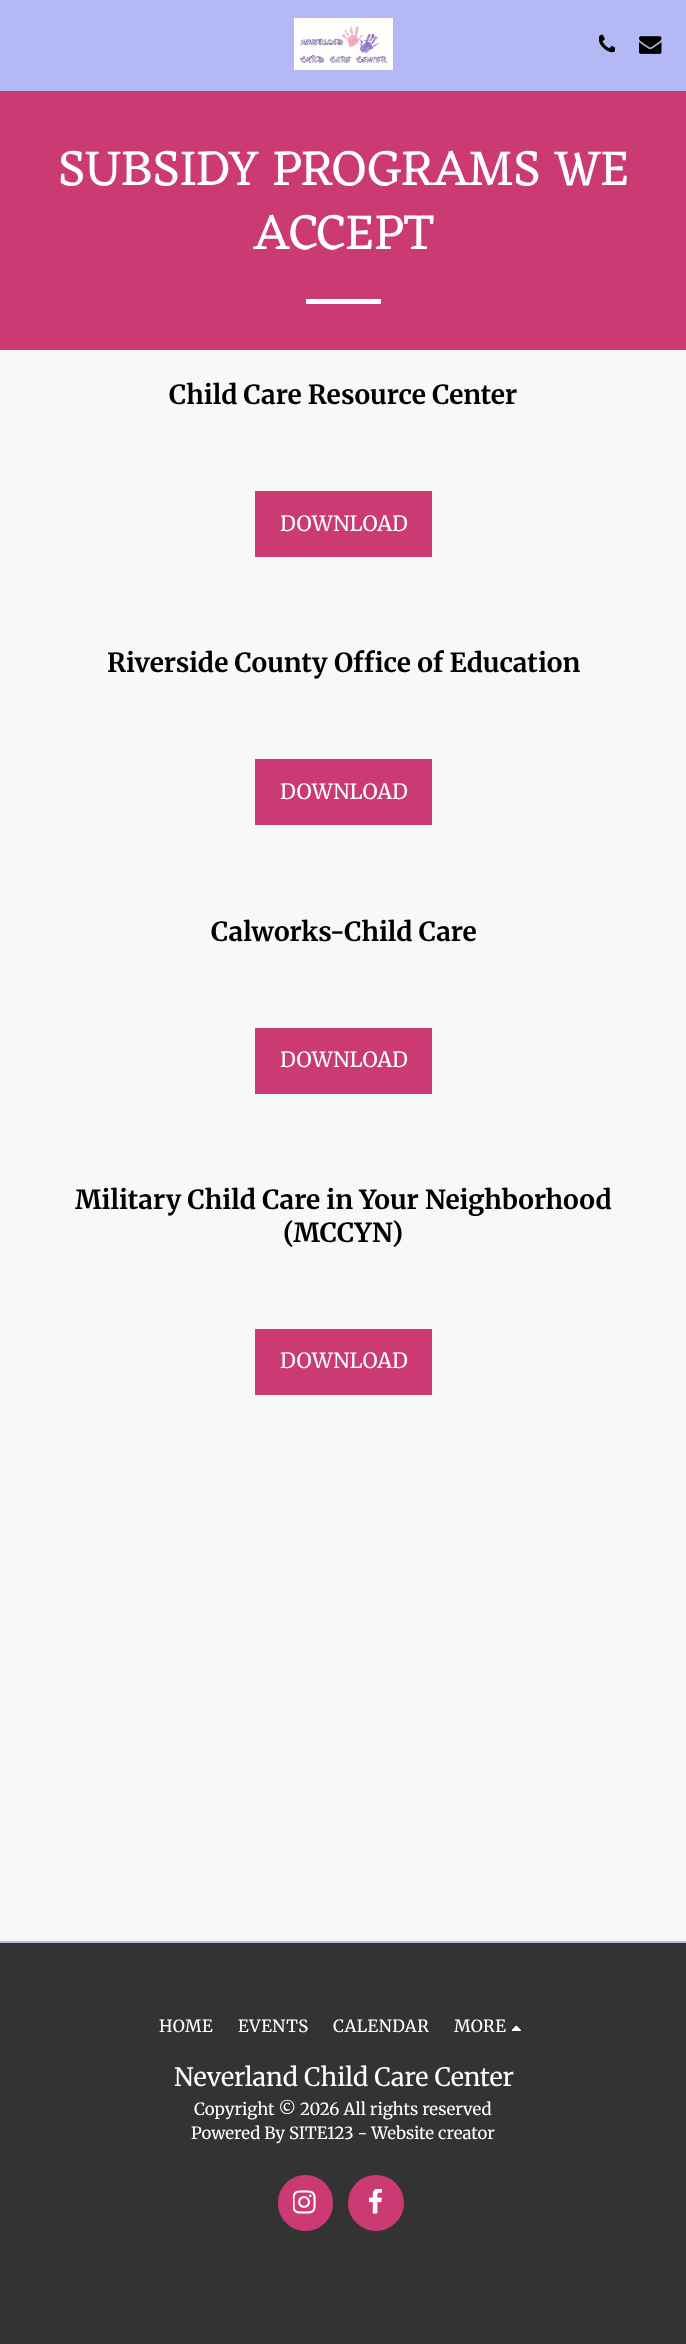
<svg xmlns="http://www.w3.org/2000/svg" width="686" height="2344">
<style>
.a{font:51.25px Eczar;fill:#fff}
.b{font:bold 26.25px Merriweather;fill:#000}
.c{font:21px Merriweather;fill:#fff}
.d{font:16.75px Merriweather;letter-spacing:0.5px;fill:#fff}
.e{font:25.25px Merriweather;fill:#fff}
.f{font:16.75px Merriweather;fill:#fff}
</style>
<rect width="100%" height="100%" fill="#f7f9f8"/>
<path fill="#b4b8f5" d="M0 0h686v91H0z"/>
<image href="1.png" x="294" y="18" width="99" height="52"/>
<image href="2.png" x="599" y="34" width="16" height="19"/>
<image href="3.png" x="639" y="36" width="23" height="18"/>
<path fill="#cc3a73" d="M0 91h686v259H0z"/>
<path fill="#fff" d="M306 299h75v5H306z"/>
<path fill="#cc3a73" d="M255 491h177v66H255z"/>
<path fill="#cc3a73" d="M255 759h177v66H255z"/>
<path fill="#cc3a73" d="M255 1028h177v66H255z"/>
<path fill="#cc3a73" d="M255 1329h177v66H255z"/>
<path fill="#333" d="M0 1943h686v401H0z"/>
<path fill="#b4b8f5" d="M0 1941h686v2H0z"/>
<image href="4.png" x="512" y="2025" width="9" height="6"/>
<rect fill="#cc3a73" stroke="#cc3a73" stroke-width="2" x="279" y="2176" width="53" height="54" rx="26.5"/>
<image href="5.png" x="293" y="2190" width="23" height="24"/>
<circle fill="#cc3a73" stroke="#cc3a73" stroke-width="2" cx="376" cy="2203" r="27"/>
<image href="6.png" x="368" y="2189" width="14" height="25"/>
<text class="a" x="58" y="185">SUBSIDY PROGRAMS WE</text>
<text class="a" x="254" y="249">ACCEPT</text>
<text class="b" x="169" y="404">Child Care Resource Center</text>
<text class="c" x="280" y="531">DOWNLOAD</text>
<text class="b" x="107" y="672">Riverside County Office of Education</text>
<text class="c" x="280" y="799">DOWNLOAD</text>
<text class="b" x="211" y="941">Calworks-Child Care</text>
<text class="c" x="280" y="1067">DOWNLOAD</text>
<text class="b" x="75" y="1209">Military Child Care in Your Neighborhood</text>
<text class="b" x="283" y="1242">(MCCYN)</text>
<text class="c" x="280" y="1368">DOWNLOAD</text>
<text class="d" x="159" y="2032">HOME</text>
<text class="d" x="238" y="2032">EVENTS</text>
<text class="d" x="333" y="2032">CALENDAR</text>
<text class="d" x="454" y="2032">MORE</text>
<text class="e" x="174" y="2086">Neverland Child Care Center</text>
<text class="f" x="194" y="2115">Copyright © 2026 All rights reserved</text>
<text class="f" x="191" y="2139">Powered By SITE123 - Website creator</text>
</svg>
